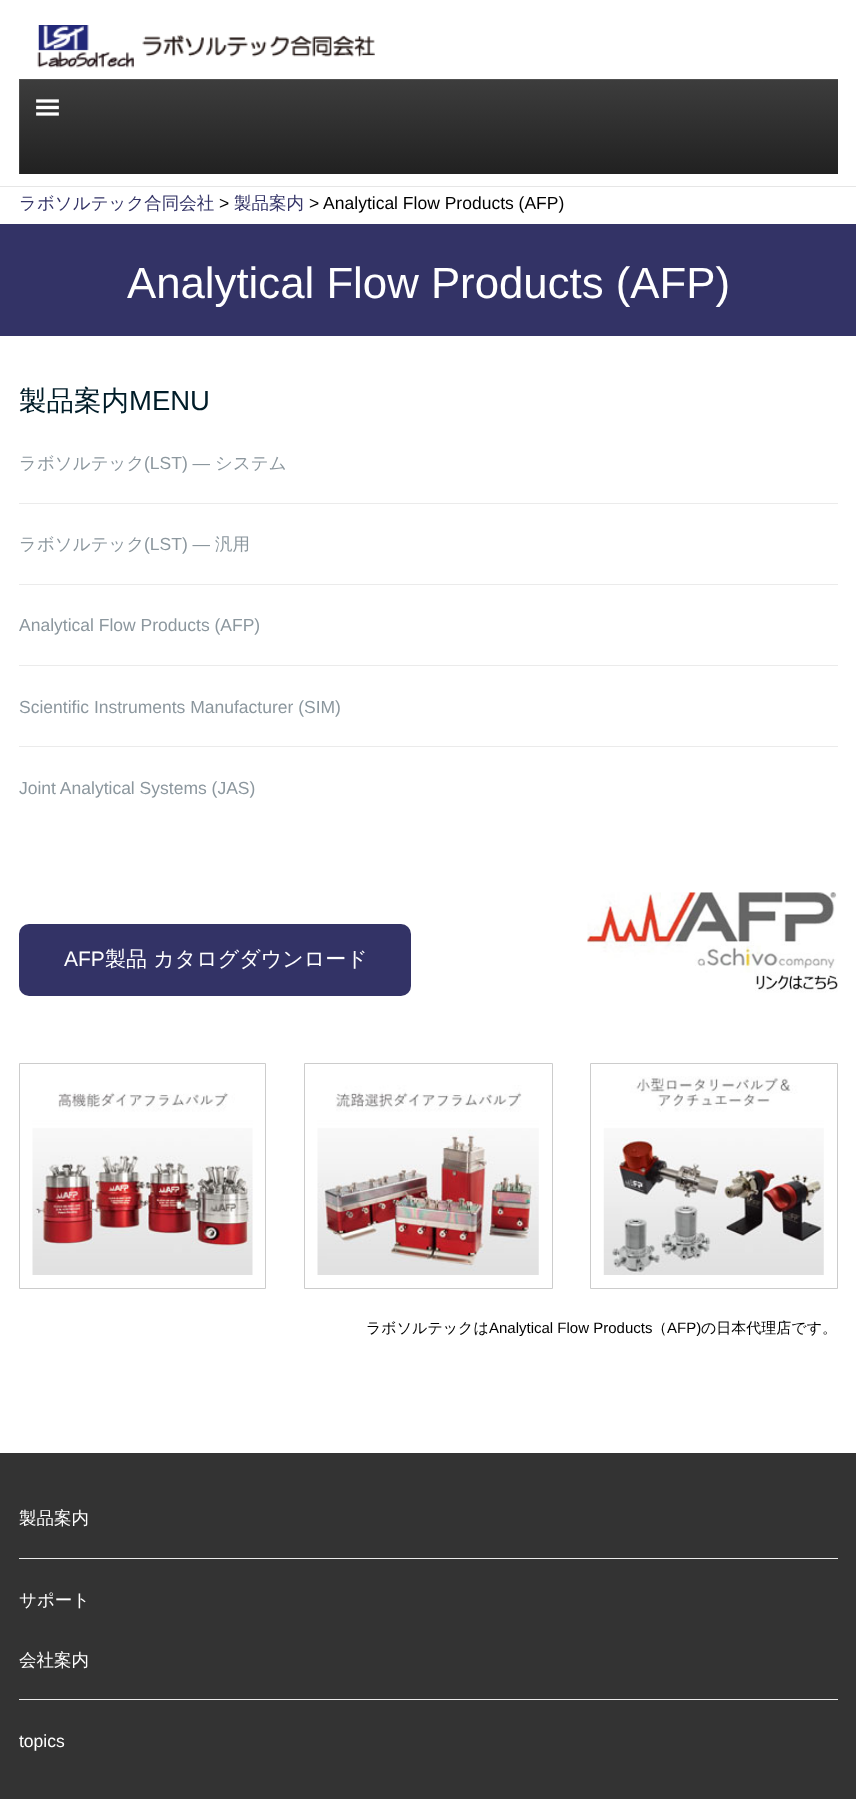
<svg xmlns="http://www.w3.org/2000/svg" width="856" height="1799">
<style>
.a{font:500 17.5px WenQuanYi Zen Hei;fill:#336}
.b{font:17.5px Liberation Sans;fill:#000}
.c{font:43.75px Liberation Sans;fill:#fff}
.d{font:500 27.5px WenQuanYi Zen Hei;fill:#001c28}
.e{font:27.5px Liberation Sans;fill:#001c28}
.f{font:500 17.5px WenQuanYi Zen Hei;fill:#8c979e}
.g{font:17.5px Liberation Sans;fill:#8c979e}
.h{font:21px Liberation Sans;fill:#fff}
.i{font:500 21px WenQuanYi Zen Hei;fill:#fff}
.j{font:500 15px WenQuanYi Zen Hei;fill:#000}
.k{font:15px Liberation Sans;fill:#000}
.l{font:500 17.5px WenQuanYi Zen Hei;fill:#fff}
.m{font:17.5px Liberation Sans;fill:#fff}
</style>
<defs>
<linearGradient id="g1" gradientUnits="userSpaceOnUse" x1="428" y1="79" x2="428" y2="174"><stop offset="0" stop-color="#3d3d3d"/><stop offset="1" stop-color="#212121"/></linearGradient>
<clipPath id="clip1"><path d="M19 79h819v95H19z"/></clipPath>
</defs>
<rect width="100%" height="100%" fill="#fff"/>
<path fill="#e6e6e6" d="M0 186h856v1H0z"/>
<image href="1.png" x="37" y="25" width="338" height="43"/>
<path fill="url(#g1)" d="M19 79h819v95H19z"/>
<g clip-path="url(#clip1)">
<path fill="#ffffff1a" fill-rule="evenodd" d="M-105-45h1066v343h-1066zm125 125h819v95h-819z"/>
</g>
<image href="2.png" x="36" y="99" width="23" height="17"/>
<path fill="#336" d="M0 224h856v112H0z"/>
<path fill="#ebebeb" d="M19 503h819v1H19z"/>
<path fill="#ebebeb" d="M19 584h819v1H19z"/>
<path fill="#ebebeb" d="M19 665h819v1H19z"/>
<path fill="#ebebeb" d="M19 746h819v1H19z"/>
<rect fill="#336" x="19" y="924" width="392" height="72" rx="10"/>
<image href="3.png" x="587" y="892" width="251" height="101"/>
<path fill="none" stroke="#ccc" d="M19.5 1063.5h246v225H19.5z"/>
<image href="4.png" x="32" y="1092" width="221" height="183"/>
<path fill="none" stroke="#ccc" d="M304.5 1063.5h248v225H304.5z"/>
<image href="5.png" x="317" y="1085" width="222" height="190"/>
<path fill="none" stroke="#ccc" d="M590.5 1063.5h247v225H590.5z"/>
<image href="6.png" x="603" y="1076" width="221" height="199"/>
<path fill="#333" d="M0 1453h856v346H0z"/>
<path fill="#ebebeb" d="M19 1558h819v1H19z"/>
<path fill="#ebebeb" d="M19 1699h819v1H19z"/>
<text class="a" x="19" y="209">ラボソルテック合同会社</text>
<text class="b" x="219" y="209">&gt;</text>
<text class="a" x="234" y="209">製品案内</text>
<text class="b" x="309" y="209">&gt; Analytical Flow Products (AFP)</text>
<text class="c" x="127" y="298">Analytical Flow Products (AFP)</text>
<text class="d" x="19" y="410">製品案内</text>
<text class="e" x="129" y="410">MENU</text>
<text class="f" x="19" y="469">ラボソルテック</text>
<text class="g" x="144" y="469">(LST) ―</text>
<text class="f" x="215" y="469">システム</text>
<text class="f" x="19" y="550">ラボソルテック</text>
<text class="g" x="144" y="550">(LST) ―</text>
<text class="f" x="215" y="550">汎用</text>
<text class="g" x="19" y="631">Analytical Flow Products (AFP)</text>
<text class="g" x="19" y="713">Scientific Instruments Manufacturer (SIM)</text>
<text class="g" x="19" y="794">Joint Analytical Systems (JAS)</text>
<text class="h" x="64" y="966">AFP</text>
<text class="i" x="105" y="966">製品 カタログダウンロード</text>
<text class="j" x="366" y="1333">ラボソルテックは</text>
<text class="k" x="489" y="1333">Analytical Flow Products</text>
<text class="j" x="652" y="1333">（</text>
<text class="k" x="667" y="1333">AFP)</text>
<text class="j" x="701" y="1333">の日本代理店です。</text>
<text class="l" x="19" y="1524">製品案内</text>
<text class="l" x="19" y="1606">サポート</text>
<text class="l" x="19" y="1666">会社案内</text>
<text class="m" x="19" y="1747">topics</text>
</svg>
